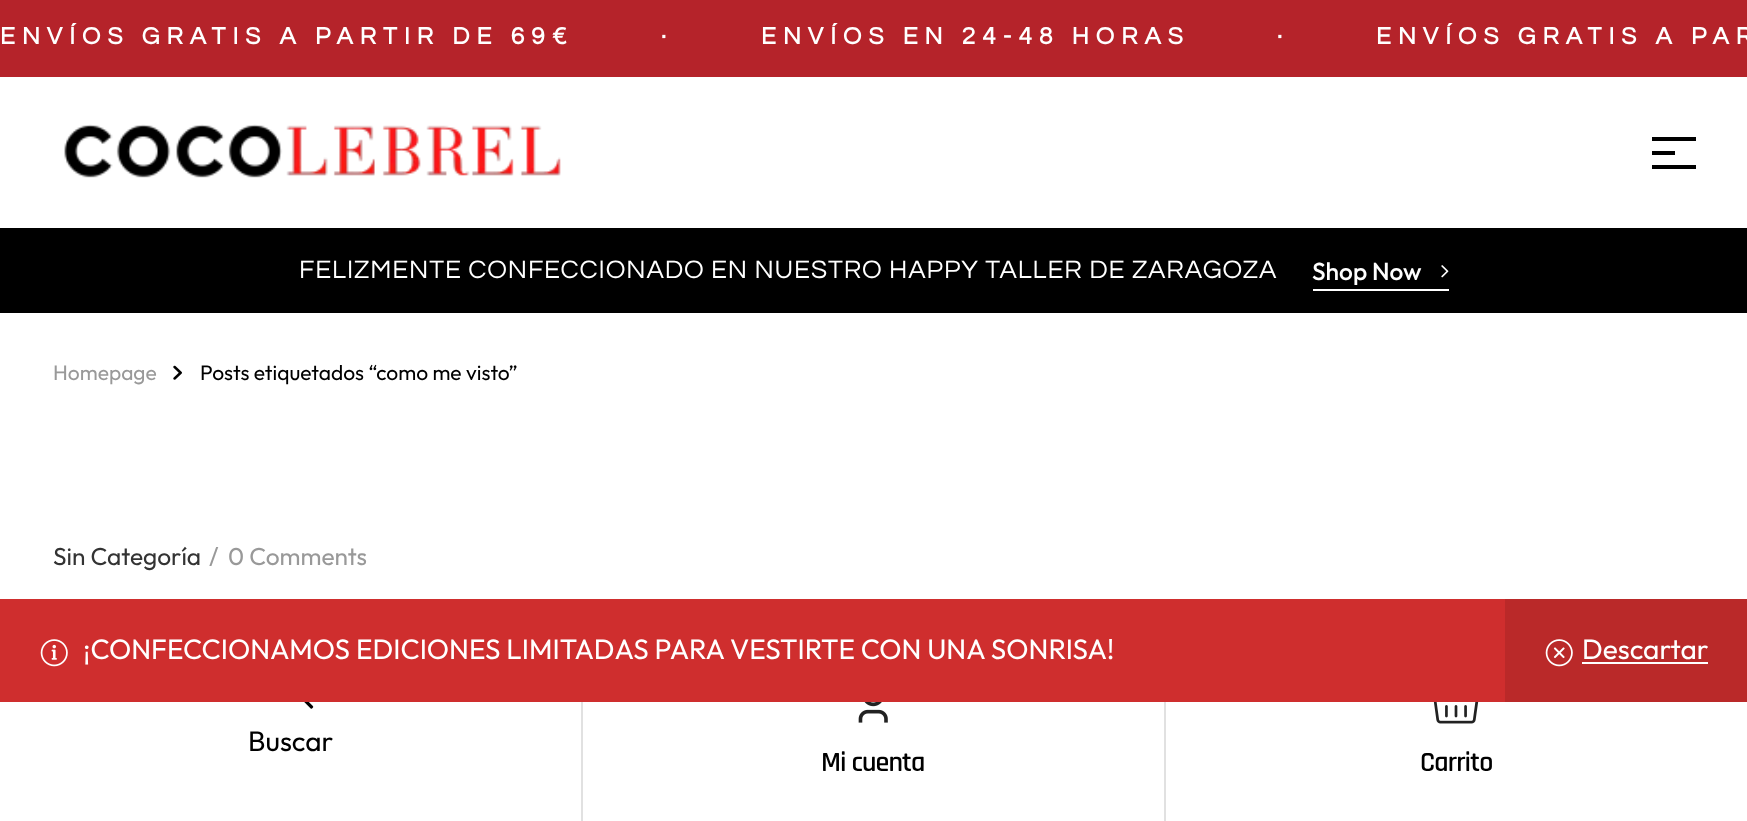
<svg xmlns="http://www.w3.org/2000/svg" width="1747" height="821">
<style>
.a{font:bold 24.5px Questrial;letter-spacing:7px;fill:#fff}
.b{font:26.25px Questrial;letter-spacing:0.88px;fill:#fff}
.c{font:500 24.5px Outfit;fill:#fff}
.d{font:21px Outfit;fill:#999}
.e{font:21px Outfit;fill:#000}
.f{font:24.5px Outfit;fill:#333}
.g{font:24.5px Outfit;fill:#999}
.h{font:28px Outfit;fill:#000}
.i{font:600 28px Rajdhani;letter-spacing:-0.9px;fill:#000}
.j{font:28px Outfit;fill:#fff}
</style>
<rect width="100%" height="100%" fill="#fff"/>
<path fill="#b5232a" d="M0 0h1747v77H0z"/>
<image href="1.png" x="64" y="124" width="497" height="54"/>
<path fill="#000" d="M1652 137h44v4H1652z"/>
<path fill="#000" d="M1652 151h23v4H1652z"/>
<path fill="#000" d="M1652 165h44v4H1652z"/>
<path fill="#000" d="M0 228h1747v85H0z"/>
<path fill="#fff" d="M1313 289h136v2H1313z"/>
<image href="2.png" x="1441" y="265" width="8" height="13"/>
<image href="3.png" x="173" y="365" width="9" height="15"/>
<path fill="#e1e1e1" d="M581 702h2v119H581z"/>
<image href="4.png" x="304" y="702" width="10" height="7"/>
<path fill="#e1e1e1" d="M1164 702h2v119H1164z"/>
<image href="5.png" x="858" y="702" width="30" height="21"/>
<image href="6.png" x="1433" y="702" width="46" height="22"/>
<path fill="#cf2e2e" d="M0 599h1505v103H0z"/>
<image href="7.png" x="40" y="639" width="28" height="28"/>
<path fill="#ba2929" d="M1505 599h242v103H1505z"/>
<image href="8.png" x="1545" y="639" width="28" height="28"/>
<path fill="#fff" d="M1582 662h126v2H1582z"/>
<text class="a" x="0" y="44">ENVÍOS GRATIS A PARTIR DE 69€</text>
<text class="a" x="661" y="44">·</text>
<text class="a" x="761" y="44">ENVÍOS EN 24-48 HORAS</text>
<text class="a" x="1277" y="44">·</text>
<text class="a" x="1376" y="44">ENVÍOS GRATIS A PAR</text>
<text class="b" x="299" y="278">FELIZMENTE CONFECCIONADO EN NUESTRO HAPPY TALLER DE ZARAGOZA</text>
<text class="c" x="1312" y="280">Shop Now</text>
<text class="d" x="53" y="380">Homepage</text>
<text class="e" x="200" y="380">Posts etiquetados “como me visto”</text>
<text class="f" x="53" y="565">Sin Categoría</text>
<text class="g" x="209" y="565">/</text>
<text class="g" x="228" y="565">0 Comments</text>
<text class="h" x="248" y="751">Buscar</text>
<text class="i" x="821" y="771">Mi cuenta</text>
<text class="i" x="1420" y="771">Carrito</text>
<text class="j" x="83" y="659">¡CONFECCIONAMOS EDICIONES LIMITADAS PARA VESTIRTE CON UNA SONRISA!</text>
<text class="j" x="1582" y="659">Descartar</text>
</svg>
